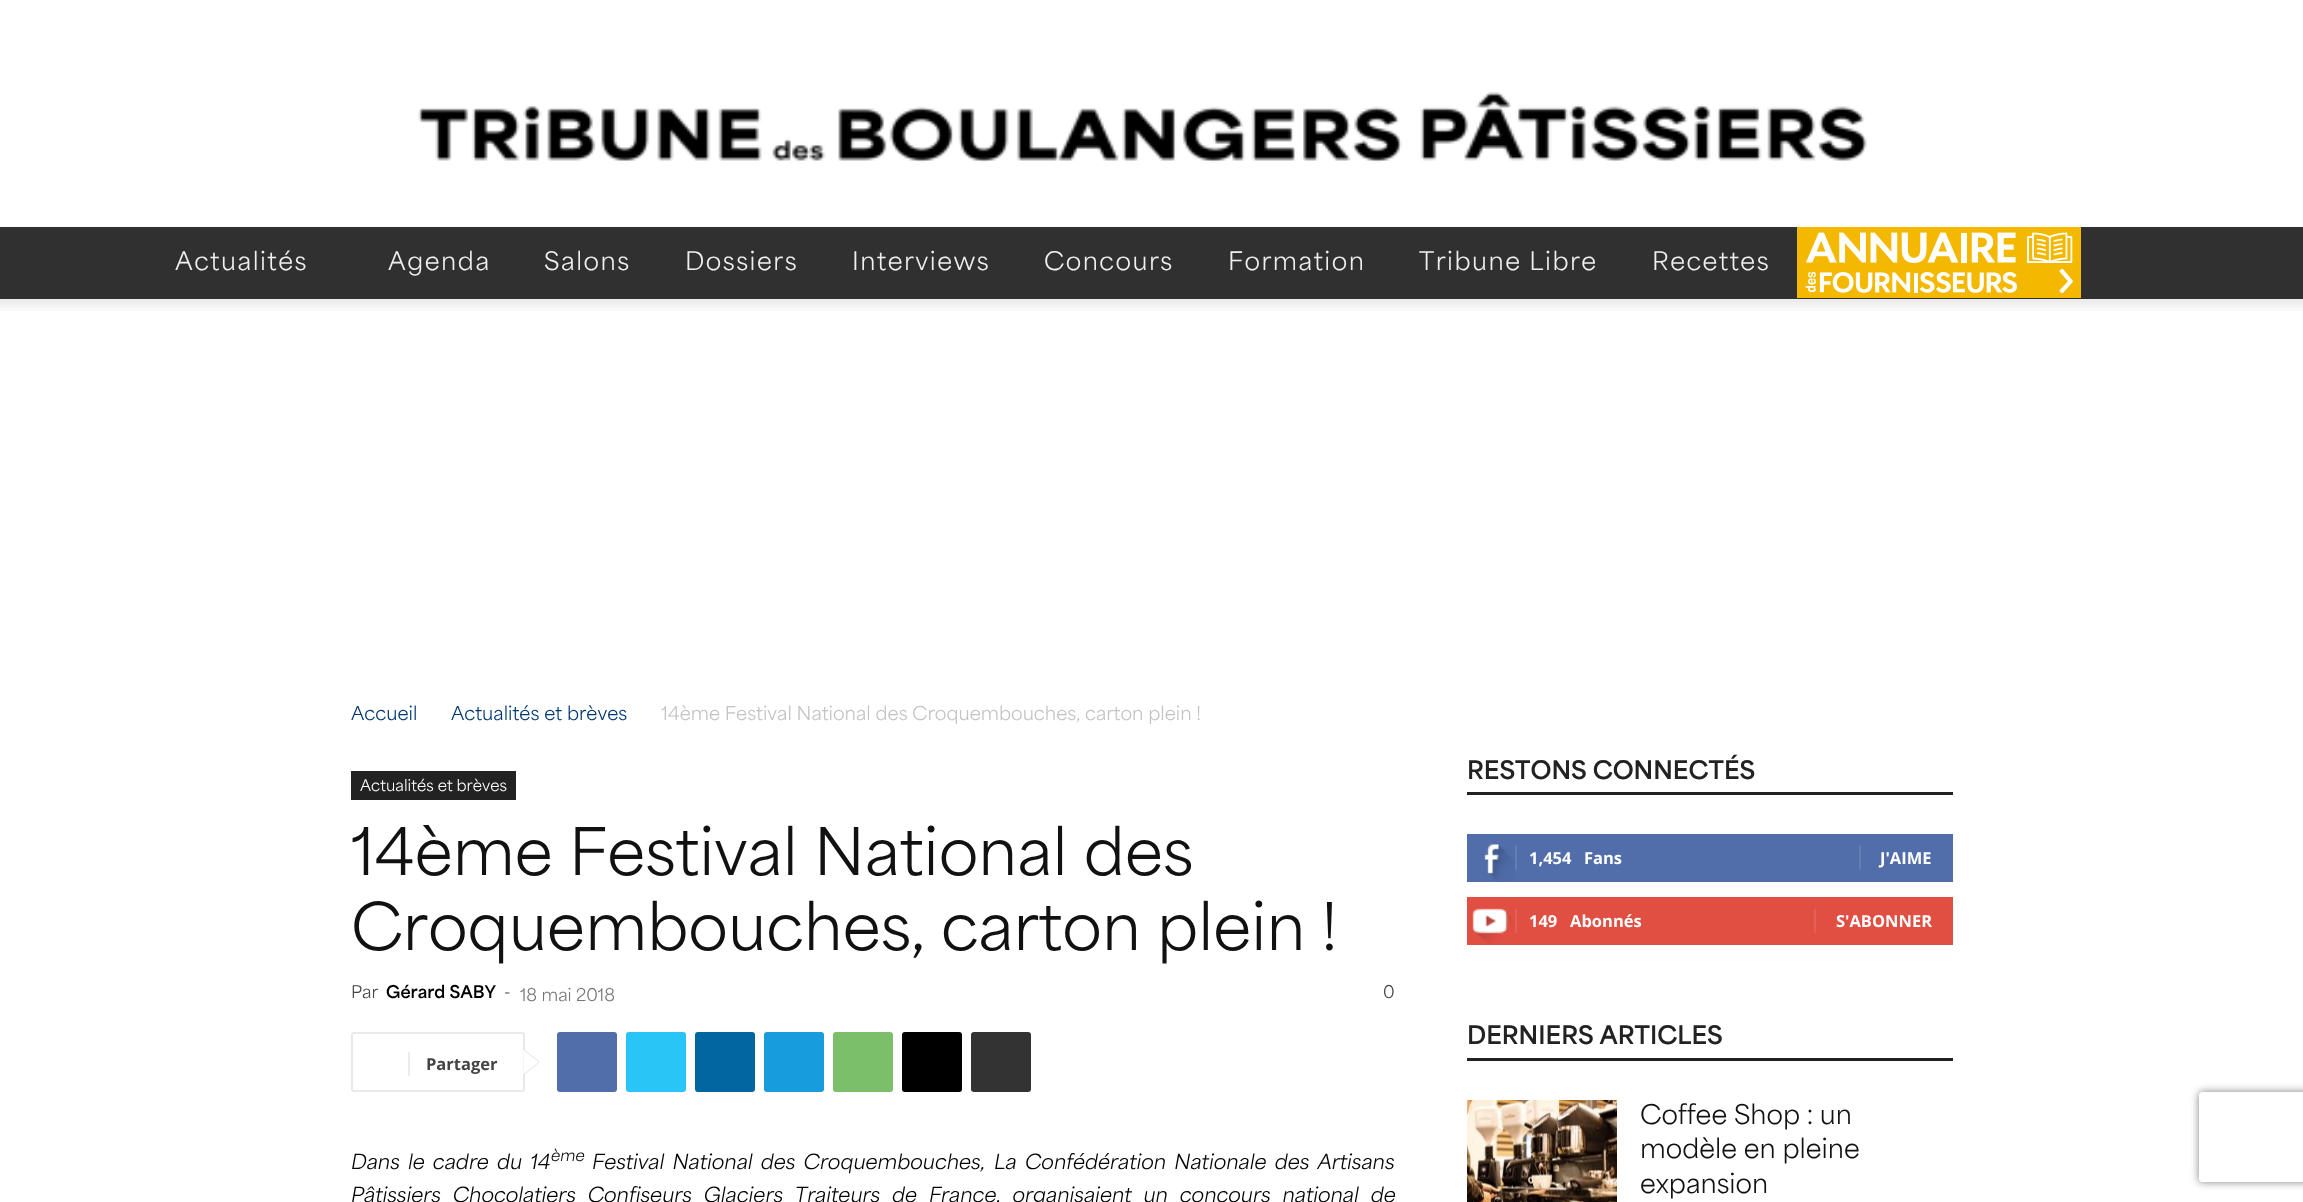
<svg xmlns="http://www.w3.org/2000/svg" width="2303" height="1202">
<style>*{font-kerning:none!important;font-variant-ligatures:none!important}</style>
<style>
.a{font:24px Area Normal;letter-spacing:1.5px;fill:#efefef}
.b{font:18px Area Normal;fill:#003873}
.c{font:18px Area Normal;fill:#c3c3c3}
.d{font:15px Area Normal;fill:#fff}
.e{font:61.5px Area Normal;fill:#111}
.f{font:16.5px Area Normal;fill:#444}
.g{font:bold 16.5px Area Normal;fill:#000}
.h{font:16.5px Area Normal;fill:#767676}
.i{font:bold 16.5px Open Sans;fill:#444}
.j{font:italic 19.5px Area Normal;fill:#000}
.k{font:italic 15px Area Normal;fill:#000}
.l{font:bold 24px Area Normal;fill:#222}
.m{font:bold 16.5px Open Sans;fill:#fff}
.n{font:25.5px Area Normal;fill:#111}
</style>
<defs>
<clipPath id="clip1"><path d="M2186 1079h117v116h-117zm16 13h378c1.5 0 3 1.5 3 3v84c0 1.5-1.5 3-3 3h-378c-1.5 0-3-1.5-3-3v-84c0-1.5 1.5-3 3-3z" clip-rule="evenodd"/></clipPath>
</defs>
<rect width="100%" height="100%" fill="#fff"/>
<image href="1.png" x="418" y="92" width="1449" height="71"/>
<path fill="#303030" d="M0 227h2303v72H0z"/>
<image href="2.png" x="1797" y="227" width="284" height="71"/>
<image href="3.png" x="0" y="299" width="2303" height="12"/>
<path fill="#222" d="M351 771h165v29H351z"/>
<rect fill="none" stroke="#e9e9e9" stroke-width="2" x="352" y="1033" width="172" height="58" rx="2"/>
<path fill="#e9e9e9" d="M523.5 1075.5v-27l16.5 13.5z"/>
<path fill="#ebebeb" d="M408 1052h2v24H408z"/>
<path fill="#fff" d="M523.5 1074v-24l15 12z"/>
<rect fill="#516eab" x="557" y="1032" width="60" height="60" rx="3"/>
<rect fill="#29c5f6" x="626" y="1032" width="60" height="60" rx="3"/>
<rect fill="#0266a0" x="695" y="1032" width="60" height="60" rx="3"/>
<rect fill="#179cde" x="764" y="1032" width="60" height="60" rx="3"/>
<rect fill="#7bbf6a" x="833" y="1032" width="60" height="60" rx="3"/>
<rect fill="#000" x="902" y="1032" width="60" height="60" rx="3"/>
<rect fill="#333" x="971" y="1032" width="60" height="60" rx="3"/>
<path fill="#222" d="M1467 792h486v3H1467z"/>
<path fill="#516eab" d="M1467 834h486v48H1467z"/>
<image href="4.png" x="1484" y="844" width="31" height="38"/>
<path fill="#627db3" d="M1515 846h2v24H1515z"/>
<path fill="#627db3" d="M1859 846h2v24H1859z"/>
<path fill="#e14e42" d="M1467 897h486v48H1467z"/>
<image href="5.png" x="1472" y="908" width="41" height="36"/>
<path fill="#e46055" d="M1515 909h2v24H1515z"/>
<path fill="#e46055" d="M1814 909h2v24H1814z"/>
<path fill="#222" d="M1467 1058h486v3H1467z"/>
<image href="6.png" x="1467" y="1100" width="150" height="102"/>
<g clip-path="url(#clip1)">
<rect fill="#808080" filter="blur(4px)" x="2199" y="1092" width="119" height="90" rx="3"/>
</g>
<text class="a" x="175" y="270">Actualités</text>
<text class="a" x="388" y="270">Agenda</text>
<text class="a" x="544" y="270">Salons</text>
<text class="a" x="685" y="270">Dossiers</text>
<text class="a" x="852" y="270">Interviews</text>
<text class="a" x="1044" y="270">Concours</text>
<text class="a" x="1228" y="270">Formation</text>
<text class="a" x="1419" y="270">Tribune Libre</text>
<text class="a" x="1652" y="270">Recettes</text>
<text class="b" x="351" y="720">Accueil</text>
<text class="b" x="451" y="720">Actualités et brèves</text>
<text class="c" x="661" y="720">14ème Festival National des Croquembouches, carton plein !</text>
<text class="d" x="360" y="791">Actualités et brèves</text>
<text class="e" x="351" y="875">14ème Festival National des</text>
<text class="e" x="351" y="950">Croquembouches, carton plein !</text>
<text class="f" x="351" y="998">Par</text>
<text class="g" x="386" y="998">Gérard SABY</text>
<text class="f" x="504" y="998">-</text>
<text class="h" x="520" y="1001">18 mai 2018</text>
<text class="f" x="1383" y="998">0</text>
<text class="i" x="426" y="1070">Partager</text>
<text class="j" x="351" y="1169" word-spacing="3">Dans le cadre du 14</text>
<text class="k" x="551" y="1161">ème</text>
<text class="j" x="592" y="1169" word-spacing="3">Festival National des Croquembouches,</text>
<text class="j" x="994" y="1169">La</text>
<text class="j" x="1025" y="1169" word-spacing="3">Confédération Nationale des Artisans</text>
<text class="j" x="351" y="1202" word-spacing="6.75">Pâtissiers Chocolatiers Confiseurs Glaciers Traiteurs</text>
<text class="j" x="892" y="1202" word-spacing="6.75">de France, organisaient un concours national de</text>
<text class="l" x="1467" y="779">RESTONS CONNECTÉS</text>
<text class="m" x="1529" y="864">1,454</text>
<text class="m" x="1584" y="864">Fans</text>
<text class="m" x="1880" y="864">J'AIME</text>
<text class="m" x="1529" y="927">149</text>
<text class="m" x="1570" y="927">Abonnés</text>
<text class="m" x="1836" y="927">S'ABONNER</text>
<text class="l" x="1467" y="1044">DERNIERS ARTICLES</text>
<text class="n" x="1640" y="1124">Coffee Shop : un</text>
<text class="n" x="1640" y="1158">modèle en pleine</text>
<text class="n" x="1640" y="1193">expansion</text>
</svg>
